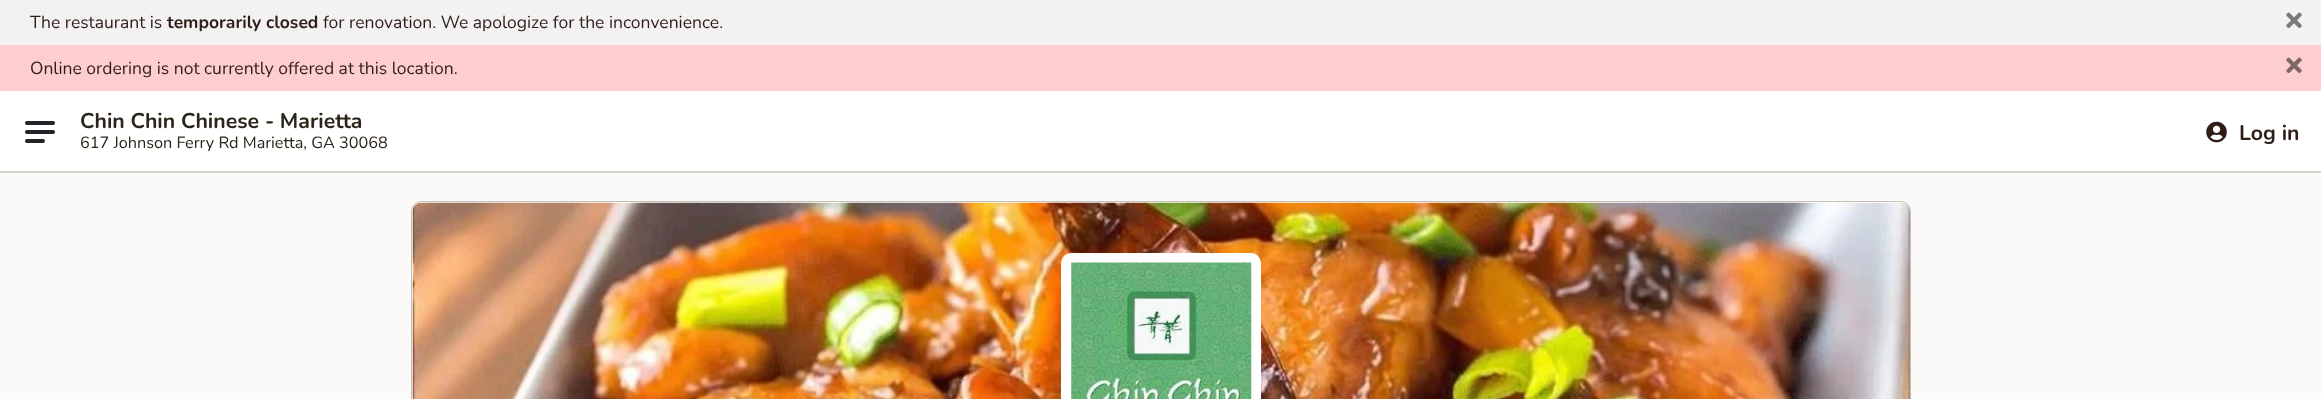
<svg xmlns="http://www.w3.org/2000/svg" width="2321" height="399">
<style>
.a{font:17.5px Nunito;fill:#301d17}
.b{font:bold 17.5px Nunito;fill:#301d17}
.c{font:bold 21.25px Nunito;fill:#2c261a}
.d{font:16.25px Nunito;fill:#2c261a}
.e{font:bold 21.25px Nunito;fill:#301d17}
</style>
<rect width="100%" height="100%" fill="#fbfaf9"/>
<path fill="#f2f2f2" d="M0 0h2321v45H0z"/>
<image href="1.png" x="2286" y="12" width="16" height="16"/>
<path fill="#fecece" d="M0 45h2321v46H0z"/>
<image href="2.png" x="2286" y="57" width="16" height="16"/>
<path fill="#d7d4cd" d="M0 171h2321v2H0z"/>
<path fill="#fff" d="M0 91h2321v80H0z"/>
<rect fill="#212529" x="25" y="121" width="30" height="4" rx="2"/>
<rect fill="#212529" x="25" y="130" width="30" height="4" rx="2"/>
<rect fill="#212529" x="25" y="139" width="20" height="4" rx="2"/>
<image href="3.png" x="2206" y="121" width="21" height="22"/>
<rect fill="#fff" x="411" y="201" width="1500" height="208" rx="10"/>
<rect fill="none" stroke="#948d7c8c" x="411.5" y="201.5" width="1499" height="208" rx="9.5"/>
<image href="4.png" x="412" y="202" width="1498" height="197"/>
<rect fill="#fff" x="1061" y="253" width="200" height="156" rx="10"/>
<image href="5.png" x="1071" y="262" width="181" height="137"/>
<text class="a" x="30" y="28">The restaurant is</text>
<text class="b" x="167" y="28">temporarily closed</text>
<text class="a" x="323" y="28">for renovation. We apologize for the inconvenience.</text>
<text class="a" x="30" y="74">Online ordering is not currently offered at this location.</text>
<text class="c" x="80" y="128">Chin Chin Chinese - Marietta</text>
<text class="d" x="80" y="148">617 Johnson Ferry Rd Marietta, GA 30068</text>
<text class="e" x="2239" y="140">Log in</text>
</svg>
